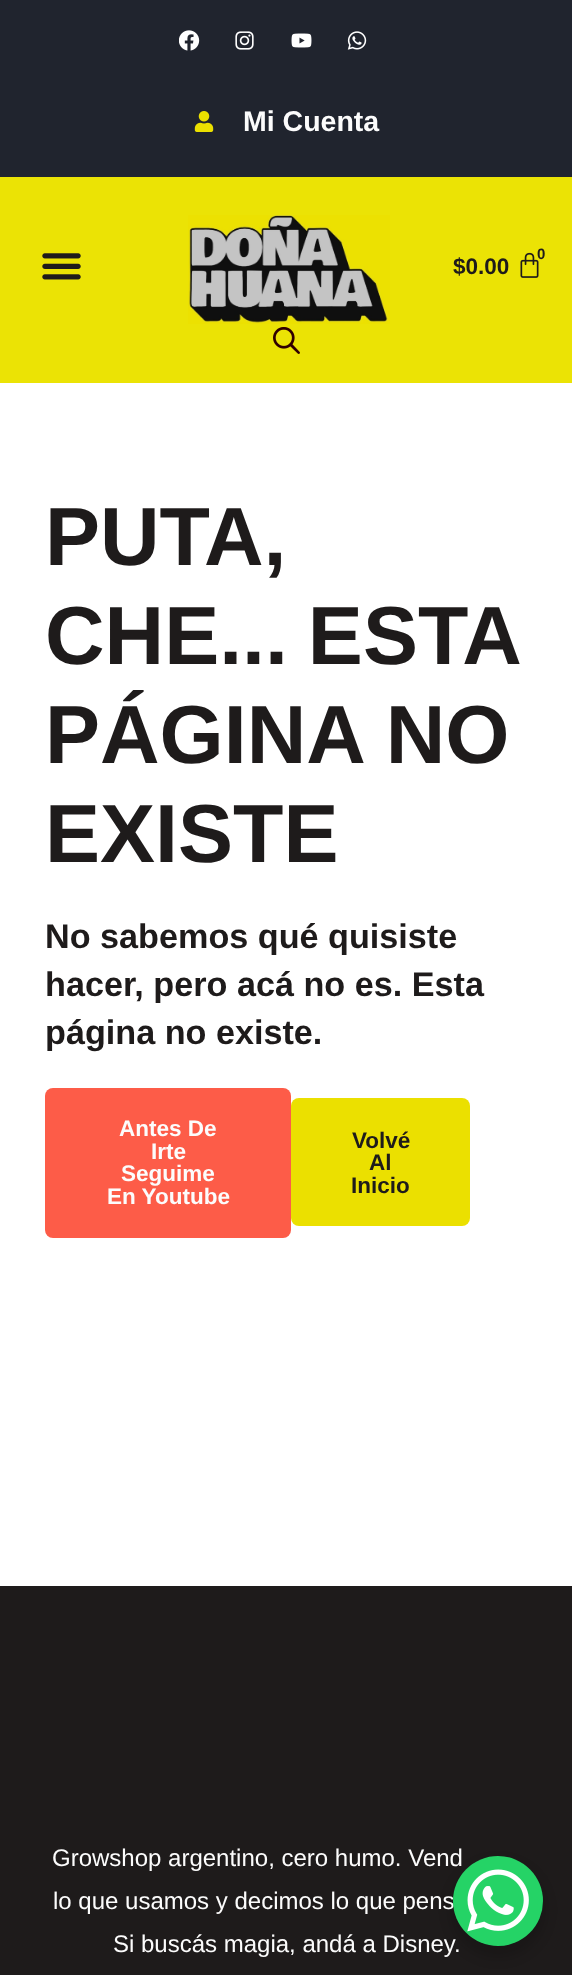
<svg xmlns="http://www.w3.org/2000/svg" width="572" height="1975">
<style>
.a{font:bold 28.5px Liberation Sans;fill:#fcfcfc}
.b{font:bold 15px Liberation Sans;fill:#1e1b1b}
.c{font:bold 22.5px Liberation Sans;fill:#1e1b1b}
.d{font:bold 82.5px Liberation Sans;fill:#1e1b1b}
.e{font:bold 34.2px Liberation Sans;fill:#1e1b1b}
.f{font:bold 22.5px Liberation Sans;fill:#fcfcfc}
.g{font:24px Liberation Sans;fill:#fcfcfc}
</style>
<rect width="100%" height="100%" fill="#fff"/>
<path fill="#20242e" d="M0 0h572v177H0z"/>
<image href="1.png" x="179" y="30" width="21" height="21"/>
<image href="2.png" x="235" y="31" width="19" height="19"/>
<image href="3.png" x="291" y="33" width="21" height="15"/>
<image href="4.png" x="347" y="31" width="20" height="19"/>
<image href="5.png" x="194" y="111" width="20" height="21"/>
<path fill="#ebe305" d="M0 177h572v206H0z"/>
<image href="6.png" x="42" y="253" width="39" height="27"/>
<image href="7.png" x="188" y="215" width="202" height="109"/>
<image href="8.png" x="520" y="252" width="19" height="26"/>
<image href="9.png" x="273" y="327" width="27" height="27"/>
<rect fill="#fd5c48" x="45" y="1088" width="246" height="150" rx="8"/>
<rect fill="#ebe000" x="291" y="1098" width="179" height="128" rx="8"/>
<path fill="#1e1b1b" d="M0 1586h572v389H0z"/>
<rect fill="#00000026" filter="blur(6px)" x="450" y="1862" width="96" height="96" rx="48"/>
<text class="a" x="243" y="131">Mi Cuenta</text>
<text class="b" x="537" y="259">0</text>
<text class="c" x="453" y="274">$0.00</text>
<text class="d" x="45" y="565">PUTA,</text>
<text class="d" x="45" y="664" word-spacing="-3">CHE... ESTA</text>
<text class="d" x="45" y="763">PÁGINA NO</text>
<text class="d" x="45" y="862">EXISTE</text>
<text class="e" x="45" y="948">No sabemos qué quisiste</text>
<text class="e" x="45" y="996">hacer, pero acá no es. Esta</text>
<text class="e" x="45" y="1044">página no existe.</text>
<text class="f" x="119" y="1136">Antes De</text>
<text class="f" x="151" y="1159">Irte</text>
<text class="f" x="121" y="1181">Seguime</text>
<text class="f" x="107" y="1204">En Youtube</text>
<text class="c" x="352" y="1148">Volvé</text>
<text class="c" x="369" y="1170">Al</text>
<text class="c" x="351" y="1193">Inicio</text>
<text class="g" x="52" y="1866">Growshop argentino, cero humo. Vend</text>
<text class="g" x="53" y="1909">lo que usamos y decimos lo que pens</text>
<text class="g" x="113" y="1952">Si buscás magia, andá a Disney.</text>
<circle fill="#25d366" cx="498" cy="1901" r="45"/>
<image href="10.png" x="467" y="1869" width="62" height="63"/>
</svg>
